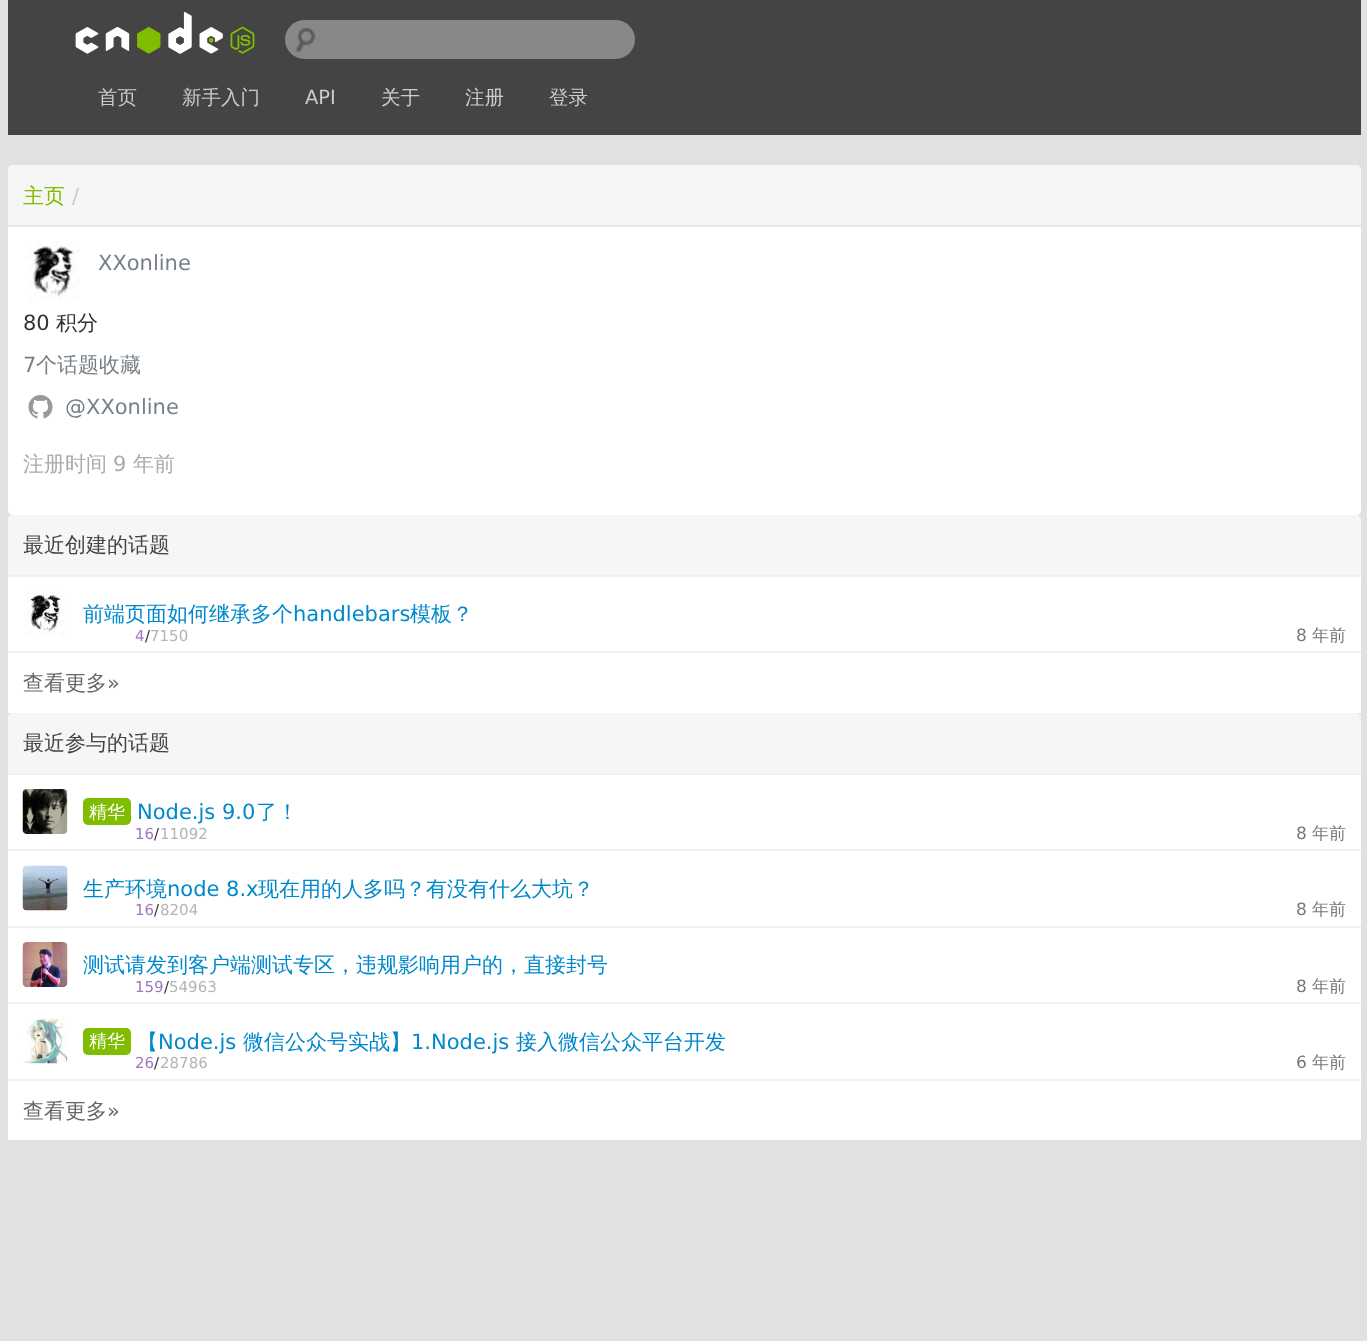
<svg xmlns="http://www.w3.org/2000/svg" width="1367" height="1341">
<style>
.a{font:500 19.5px WenQuanYi Zen Hei;fill:#ccc}
.b{font:19.5px DejaVu Sans;fill:#ccc}
.c{font:500 21px WenQuanYi Zen Hei;fill:#80bd01}
.d{font:21px DejaVu Sans;fill:#ccc}
.e{font:21px DejaVu Sans;fill:#778087}
.f{font:21px DejaVu Sans;fill:#333}
.g{font:500 21px WenQuanYi Zen Hei;fill:#333}
.h{font:500 21px WenQuanYi Zen Hei;fill:#778087}
.i{font:500 21px WenQuanYi Zen Hei;fill:#ababab}
.j{font:21px DejaVu Sans;fill:#ababab}
.k{font:500 21px WenQuanYi Zen Hei;fill:#444}
.l{font:500 21px WenQuanYi Zen Hei;fill:#08c}
.m{font:21px DejaVu Sans;fill:#08c}
.n{font:15px DejaVu Sans;fill:#9e78c0}
.o{font:15px DejaVu Sans;fill:#333}
.p{font:15px DejaVu Sans;fill:#b4b4b4}
.q{font:17px DejaVu Sans;fill:#777}
.r{font:500 17px WenQuanYi Zen Hei;fill:#777}
.s{font:500 21px WenQuanYi Zen Hei;fill:#666}
.t{font:21px DejaVu Sans;fill:#666}
.u{font:500 18px WenQuanYi Zen Hei;fill:#fff}
</style>
<rect width="100%" height="100%" fill="#e1e1e1"/>
<path fill="#444" d="M8 0h1353v135H8z"/>
<image href="1.png" x="75" y="12" width="180" height="42"/>
<rect fill="#888" x="285" y="20" width="350" height="39" rx="19.5"/>
<image href="2.png" x="295" y="27" width="21" height="26"/>
<path fill="#f6f6f6" d="M13 165h1343c3 0 5 2 5 5v55h-1353v-55c0-3 2-5 5-5z"/>
<path fill="#fff" d="M8 225h1353v285c0 3-2 5-5 5h-1343c-3 0-5-2-5-5z"/>
<path fill="#e5e5e5" d="M8 225h1353v2H8z"/>
<image href="3.png" x="25" y="242" width="55" height="59"/>
<image href="4.png" x="28" y="395" width="25" height="24"/>
<path fill="#f6f6f6" d="M13 515h1343c3 0 5 2 5 5v55h-1353v-55c0-3 2-5 5-5z"/>
<path fill="#fff" d="M8 577h1353v74H8z"/>
<path fill="#f0f0f0" d="M8 575h1353v2H8z"/>
<image href="5.png" x="24" y="591" width="42" height="45"/>
<path fill="#fff" d="M8 653h1353v60H8z"/>
<path fill="#f0f0f0" d="M8 651h1353v2H8z"/>
<path fill="#f6f6f6" d="M13 713h1343c3 0 5 2 5 5v55h-1353v-55c0-3 2-5 5-5z"/>
<path fill="#fff" d="M8 775h1353v74H8z"/>
<path fill="#f0f0f0" d="M8 773h1353v2H8z"/>
<image href="6.png" x="22" y="789" width="46" height="45"/>
<rect fill="#80bd01" x="83" y="798" width="48" height="27" rx="5"/>
<path fill="#fff" d="M8 851h1353v75H8z"/>
<path fill="#f0f0f0" d="M8 849h1353v2H8z"/>
<image href="7.png" x="22" y="865" width="46" height="46"/>
<path fill="#fff" d="M8 928h1353v74H8z"/>
<path fill="#f0f0f0" d="M8 926h1353v2H8z"/>
<image href="8.png" x="22" y="942" width="46" height="45"/>
<path fill="#fff" d="M8 1004h1353v75H8z"/>
<path fill="#f0f0f0" d="M8 1002h1353v2H8z"/>
<image href="9.png" x="23" y="1018" width="45" height="46"/>
<rect fill="#80bd01" x="83" y="1028" width="48" height="27" rx="5"/>
<path fill="#fff" d="M8 1081h1353v59H8z"/>
<path fill="#f0f0f0" d="M8 1079h1353v2H8z"/>
<text class="a" x="98" y="104">首页</text>
<text class="a" x="182" y="104">新手入门</text>
<text class="b" x="305" y="104">API</text>
<text class="a" x="381" y="104">关于</text>
<text class="a" x="465" y="104">注册</text>
<text class="a" x="549" y="104">登录</text>
<text class="c" x="23" y="203">主页</text>
<text class="d" x="72" y="203">/</text>
<text class="e" x="98" y="270">XXonline</text>
<text class="f" x="23" y="330">80</text>
<text class="g" x="56" y="330">积分</text>
<text class="e" x="23" y="372">7</text>
<text class="h" x="36" y="372">个话题收藏</text>
<text class="e" x="65" y="414">@XXonline</text>
<text class="i" x="23" y="471">注册时间</text>
<text class="j" x="113" y="471">9</text>
<text class="i" x="133" y="471">年前</text>
<text class="k" x="23" y="552">最近创建的话题</text>
<text class="l" x="83" y="621">前端页面如何继承多个</text>
<text class="m" x="293" y="621">handlebars</text>
<text class="l" x="410" y="621">模板？</text>
<text class="n" x="135" y="641">4</text>
<text class="o" x="145" y="641">/</text>
<text class="p" x="150" y="641">7150</text>
<text class="q" x="1296" y="641">8</text>
<text class="r" x="1312" y="641">年前</text>
<text class="s" x="23" y="690">查看更多</text>
<text class="t" x="107" y="690">»</text>
<text class="k" x="23" y="750">最近参与的话题</text>
<text class="u" x="89" y="818">精华</text>
<text class="m" x="137" y="819">Node.js 9.0</text>
<text class="l" x="256" y="819">了！</text>
<text class="n" x="135" y="839">16</text>
<text class="o" x="154" y="839">/</text>
<text class="p" x="160" y="839">11092</text>
<text class="q" x="1296" y="839">8</text>
<text class="r" x="1312" y="839">年前</text>
<text class="l" x="83" y="896">生产环境</text>
<text class="m" x="167" y="896">node 8.x</text>
<text class="l" x="258" y="896">现在用的人多吗？有没有什么大坑？</text>
<text class="n" x="135" y="915">16</text>
<text class="o" x="154" y="915">/</text>
<text class="p" x="160" y="915">8204</text>
<text class="q" x="1296" y="915">8</text>
<text class="r" x="1312" y="915">年前</text>
<text class="l" x="83" y="972">测试请发到客户端测试专区，违规影响用户的，直接封号</text>
<text class="n" x="135" y="992">159</text>
<text class="o" x="164" y="992">/</text>
<text class="p" x="169" y="992">54963</text>
<text class="q" x="1296" y="992">8</text>
<text class="r" x="1312" y="992">年前</text>
<text class="u" x="89" y="1047">精华</text>
<text class="l" x="137" y="1049">【</text>
<text class="m" x="158" y="1049">Node.js</text>
<text class="l" x="243" y="1049">微信公众号实战】</text>
<text class="m" x="411" y="1049">1.Node.js</text>
<text class="l" x="516" y="1049">接入微信公众平台开发</text>
<text class="n" x="135" y="1068">26</text>
<text class="o" x="154" y="1068">/</text>
<text class="p" x="160" y="1068">28786</text>
<text class="q" x="1296" y="1068">6</text>
<text class="r" x="1312" y="1068">年前</text>
<text class="s" x="23" y="1118">查看更多</text>
<text class="t" x="107" y="1118">»</text>
</svg>
